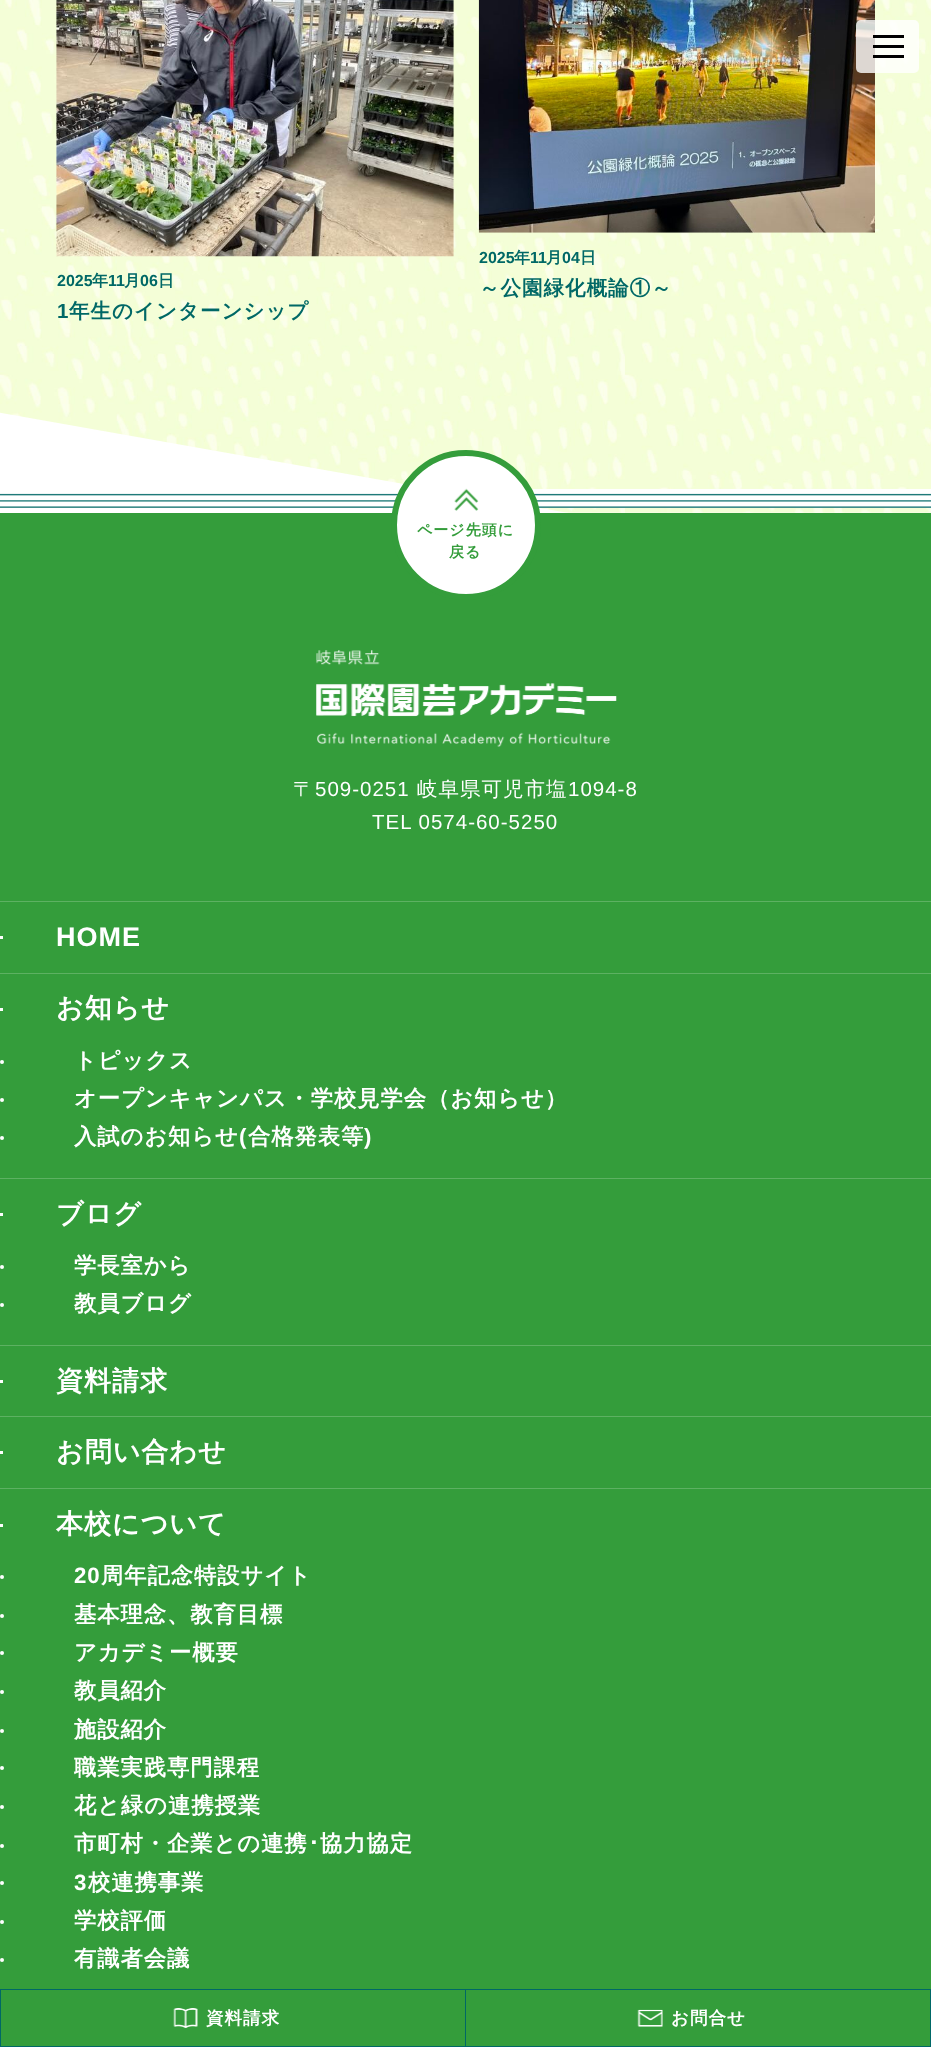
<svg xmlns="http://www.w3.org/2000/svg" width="931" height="2047">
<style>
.a{font:bold 16px Liberation Sans;fill:#006866}
.b{font:bold 16px WenQuanYi Zen Hei;fill:#006866}
.c{font:bold 20.5px Liberation Sans;letter-spacing:1px;fill:#006866}
.d{font:bold 20.5px WenQuanYi Zen Hei;letter-spacing:1px;fill:#006866}
.e{font:bold 15px WenQuanYi Zen Hei;letter-spacing:1px;fill:#349d3b}
.f{font:500 20.5px WenQuanYi Zen Hei;letter-spacing:1px;fill:#fff}
.g{font:20.5px Liberation Sans;letter-spacing:1px;fill:#fff}
.h{font:bold 27px Liberation Sans;letter-spacing:1px;fill:#fff}
.i{font:bold 27px WenQuanYi Zen Hei;letter-spacing:1px;fill:#fff}
.j{font:bold 22.25px WenQuanYi Zen Hei;letter-spacing:1px;fill:#fff}
.k{font:bold 22.25px Liberation Sans;letter-spacing:1px;fill:#fff}
.l{font:bold 22.25px IPAPGothic;letter-spacing:1px;fill:#fff}
.m{font:bold 17.5px WenQuanYi Zen Hei;letter-spacing:1px;fill:#fff}
</style>
<rect width="100%" height="100%" fill="#fff"/>
<image href="1.png" x="0" y="0" width="931" height="513"/>
<image href="3.png" x="478" y="0" width="397" height="233"/>
<rect fill="#ffffffcc" x="856" y="20" width="63" height="53" rx="5"/>
<path fill="#000" d="M873 35h31v3H873z"/>
<path fill="#000" d="M873 45h31v3H873z"/>
<path fill="#000" d="M873 55h31v3H873z"/>
<image href="2.png" x="56" y="0" width="398" height="257"/>
<path fill="#349d3b" d="M0 513h931v1476H0z"/>
<path fill="#fff" d="M432 489h499v19H432z"/>
<image href="4.png" x="0" y="493" width="931" height="15"/>
<circle fill="#fff" stroke="#349d3b" stroke-width="6" cx="466" cy="525" r="72"/>
<image href="5.png" x="454" y="488" width="25" height="23"/>
<image href="6.png" x="316" y="650" width="301" height="97"/>
<path fill="#5db162" d="M0 901h931v1H0z"/>
<path fill="#5db162" d="M0 973h931v1H0z"/>
<path fill="#fff" d="M0 936h3v3H0z"/>
<path fill="#5db162" d="M0 1178h931v1H0z"/>
<path fill="#fff" d="M0 1008h3v3H0z"/>
<circle fill="#fff" cx="2" cy="1062" r="2"/>
<circle fill="#fff" cx="2" cy="1100" r="2"/>
<circle fill="#fff" cx="2" cy="1138" r="2"/>
<path fill="#5db162" d="M0 1345h931v1H0z"/>
<path fill="#fff" d="M0 1213h3v3H0z"/>
<circle fill="#fff" cx="2" cy="1267" r="2"/>
<circle fill="#fff" cx="2" cy="1305" r="2"/>
<path fill="#5db162" d="M0 1416h931v1H0z"/>
<path fill="#fff" d="M0 1380h3v3H0z"/>
<path fill="#5db162" d="M0 1488h931v1H0z"/>
<path fill="#fff" d="M0 1451h3v3H0z"/>
<path fill="#fff" d="M0 1524h3v3H0z"/>
<circle fill="#fff" cx="2" cy="1577" r="2"/>
<circle fill="#fff" cx="2" cy="1616" r="2"/>
<circle fill="#fff" cx="2" cy="1653" r="2"/>
<circle fill="#fff" cx="2" cy="1692" r="2"/>
<circle fill="#fff" cx="2" cy="1731" r="2"/>
<circle fill="#fff" cx="2" cy="1768" r="2"/>
<circle fill="#fff" cx="2" cy="1807" r="2"/>
<circle fill="#fff" cx="2" cy="1846" r="2"/>
<circle fill="#fff" cx="2" cy="1883" r="2"/>
<circle fill="#fff" cx="2" cy="1922" r="2"/>
<circle fill="#fff" cx="2" cy="1960" r="2"/>
<path fill="#006866" d="M0 1989h931v58H0z"/>
<path fill="#349d3b" d="M1 1990h464v56H1z"/>
<image href="7.png" x="173" y="2008" width="25" height="20"/>
<path fill="#349d3b" d="M466 1990h464v56H466z"/>
<image href="8.png" x="637" y="2009" width="26" height="18"/>
<text class="a" x="57" y="286">2025</text>
<text class="b" x="92" y="286">年</text>
<text class="a" x="108" y="286">11</text>
<text class="b" x="124" y="286">月</text>
<text class="a" x="140" y="286">06</text>
<text class="b" x="158" y="286">日</text>
<text class="c" x="57" y="318">1</text>
<text class="d" x="69" y="318">年生のインターンシップ</text>
<text class="a" x="479" y="263">2025</text>
<text class="b" x="514" y="263">年</text>
<text class="a" x="530" y="263">11</text>
<text class="b" x="546" y="263">月</text>
<text class="a" x="562" y="263">04</text>
<text class="b" x="580" y="263">日</text>
<text class="d" x="479" y="295">～公園緑化概論①～</text>
<text class="e" x="417" y="535">ページ先頭に</text>
<text class="e" x="449" y="557">戻る</text>
<text class="f" x="293" y="796">〒</text>
<text class="g" x="315" y="796">509-0251</text>
<text class="f" x="417" y="796">岐阜県可児市塩</text>
<text class="g" x="568" y="796">1094-8</text>
<text class="g" x="372" y="829">TEL 0574-60-5250</text>
<text class="h" x="56" y="946">HOME</text>
<text class="i" x="56" y="1017">お知らせ</text>
<text class="j" x="74" y="1068">トピックス</text>
<text class="j" x="74" y="1106">オープンキャンパス・学校見学会（お知らせ）</text>
<text class="j" x="74" y="1144">入試のお知らせ</text>
<text class="k" x="239" y="1144">(</text>
<text class="j" x="248" y="1144">合格発表等</text>
<text class="k" x="364" y="1144">)</text>
<text class="i" x="56" y="1223">ブログ</text>
<text class="j" x="74" y="1273">学長室から</text>
<text class="j" x="74" y="1311">教員ブログ</text>
<text class="i" x="56" y="1390">資料請求</text>
<text class="i" x="56" y="1461">お問い合わせ</text>
<text class="i" x="56" y="1533">本校について</text>
<text class="k" x="74" y="1583">20</text>
<text class="j" x="101" y="1583">周年記念特設サイト</text>
<text class="j" x="74" y="1622">基本理念、教育目標</text>
<text class="j" x="74" y="1660">アカデミー概要</text>
<text class="j" x="74" y="1698">教員紹介</text>
<text class="j" x="74" y="1737">施設紹介</text>
<text class="j" x="74" y="1775">職業実践専門課程</text>
<text class="j" x="74" y="1813">花と緑の連携授業</text>
<text class="j" x="74" y="1851">市町村・企業との連携</text>
<text class="l" x="308" y="1851">･</text>
<text class="j" x="320" y="1851">協力協定</text>
<text class="k" x="74" y="1890">3</text>
<text class="j" x="88" y="1890">校連携事業</text>
<text class="j" x="74" y="1928">学校評価</text>
<text class="j" x="74" y="1966">有識者会議</text>
<text class="m" x="206" y="2024">資料請求</text>
<text class="m" x="671" y="2024">お問合せ</text>
</svg>
